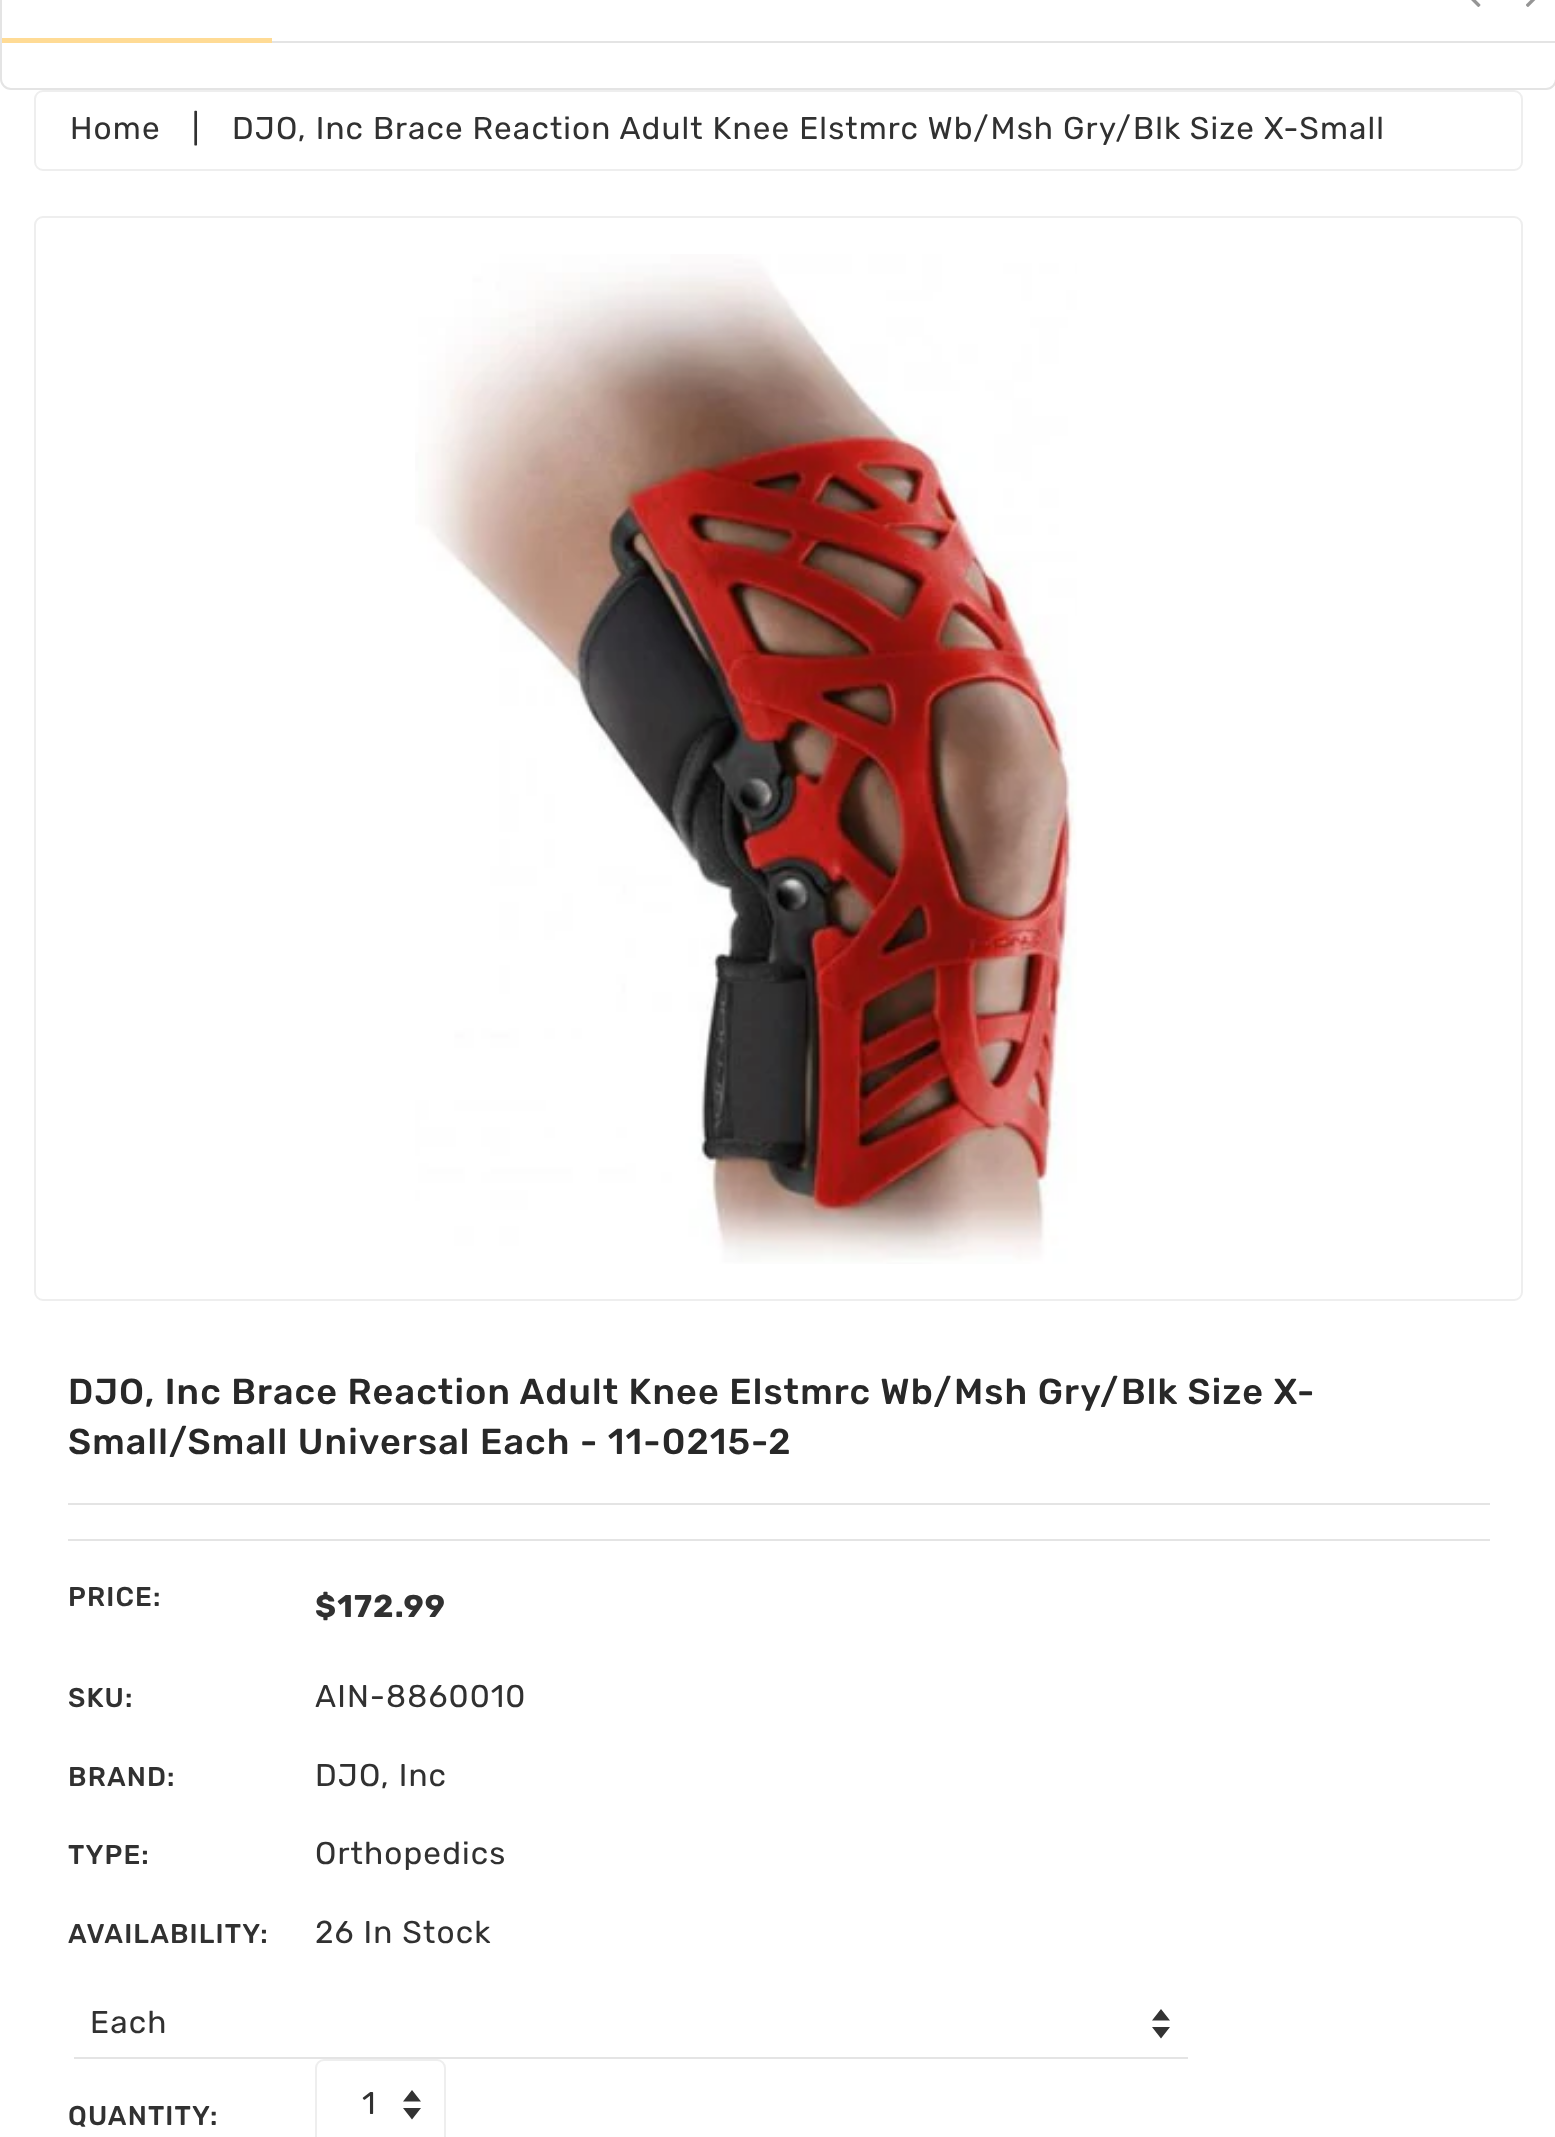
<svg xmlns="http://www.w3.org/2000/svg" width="1555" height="2137">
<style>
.a{font:31.5px Rubik;letter-spacing:1.12px;fill:#313131}
.b{font:500 36px Rubik;letter-spacing:1.12px;fill:#282828}
.c{font:500 27px Rubik;letter-spacing:1.12px;fill:#313131}
.d{font:bold 31.5px Rubik;letter-spacing:1.12px;fill:#313131}
</style>
<rect width="100%" height="100%" fill="#fff"/>
<rect fill="none" stroke="#e4e4e4" stroke-width="2" x="1" y="-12" width="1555" height="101" rx="10"/>
<image href="1.png" x="1471" y="0" width="10" height="7"/>
<image href="2.png" x="1526" y="0" width="10" height="7"/>
<path fill="#e4e4e4" d="M272 41h1283v2H272z"/>
<path fill="#ffdb95" d="M2 38h270v5H2z"/>
<rect fill="none" stroke="#eee" stroke-width="2" x="35" y="91" width="1487" height="79" rx="8"/>
<rect fill="none" stroke="#eee" stroke-width="2" x="35" y="217" width="1487" height="1083" rx="8"/>
<image href="3.png" x="415" y="254" width="662" height="1010"/>
<path fill="#e4e4e4" d="M68 1503h1422v2H68z"/>
<path fill="#e4e4e4" d="M68 1539h1422v2H68z"/>
<path fill="#333" d="M1152 2027l9 11.5l9-11.5zm9-18l-9 11.5h18z"/>
<path fill="#e4e4e4" d="M74 2057h1114v2H74z"/>
<path fill="#333" d="M403 2108l9 11.5l9-11.5zm9-18l-9 11.5h18z"/>
<rect fill="none" stroke="#eee" stroke-width="2" x="316" y="2060" width="129" height="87" rx="8"/>
<text class="a" x="70" y="139">Home</text>
<text class="a" x="192" y="139">|</text>
<text class="a" x="232" y="139">DJO, Inc Brace Reaction Adult Knee Elstmrc Wb/Msh Gry/Blk Size X-Small</text>
<text class="b" x="68" y="1404">DJO, Inc Brace Reaction Adult Knee Elstmrc Wb/Msh Gry/Blk Size X-</text>
<text class="b" x="68" y="1454">Small/Small Universal Each - 11-0215-2</text>
<text class="c" x="68" y="1606">PRICE:</text>
<text class="d" x="315" y="1617">$172.99</text>
<text class="c" x="68" y="1707">SKU:</text>
<text class="a" x="315" y="1707">AIN-8860010</text>
<text class="c" x="68" y="1786">BRAND:</text>
<text class="a" x="315" y="1786">DJO, Inc</text>
<text class="c" x="68" y="1864">TYPE:</text>
<text class="a" x="315" y="1864">Orthopedics</text>
<text class="c" x="68" y="1943">AVAILABILITY:</text>
<text class="a" x="315" y="1943">26 In Stock</text>
<text class="a" x="90" y="2033">Each</text>
<text class="c" x="68" y="2125">QUANTITY:</text>
<text class="a" x="362" y="2114">1</text>
</svg>
